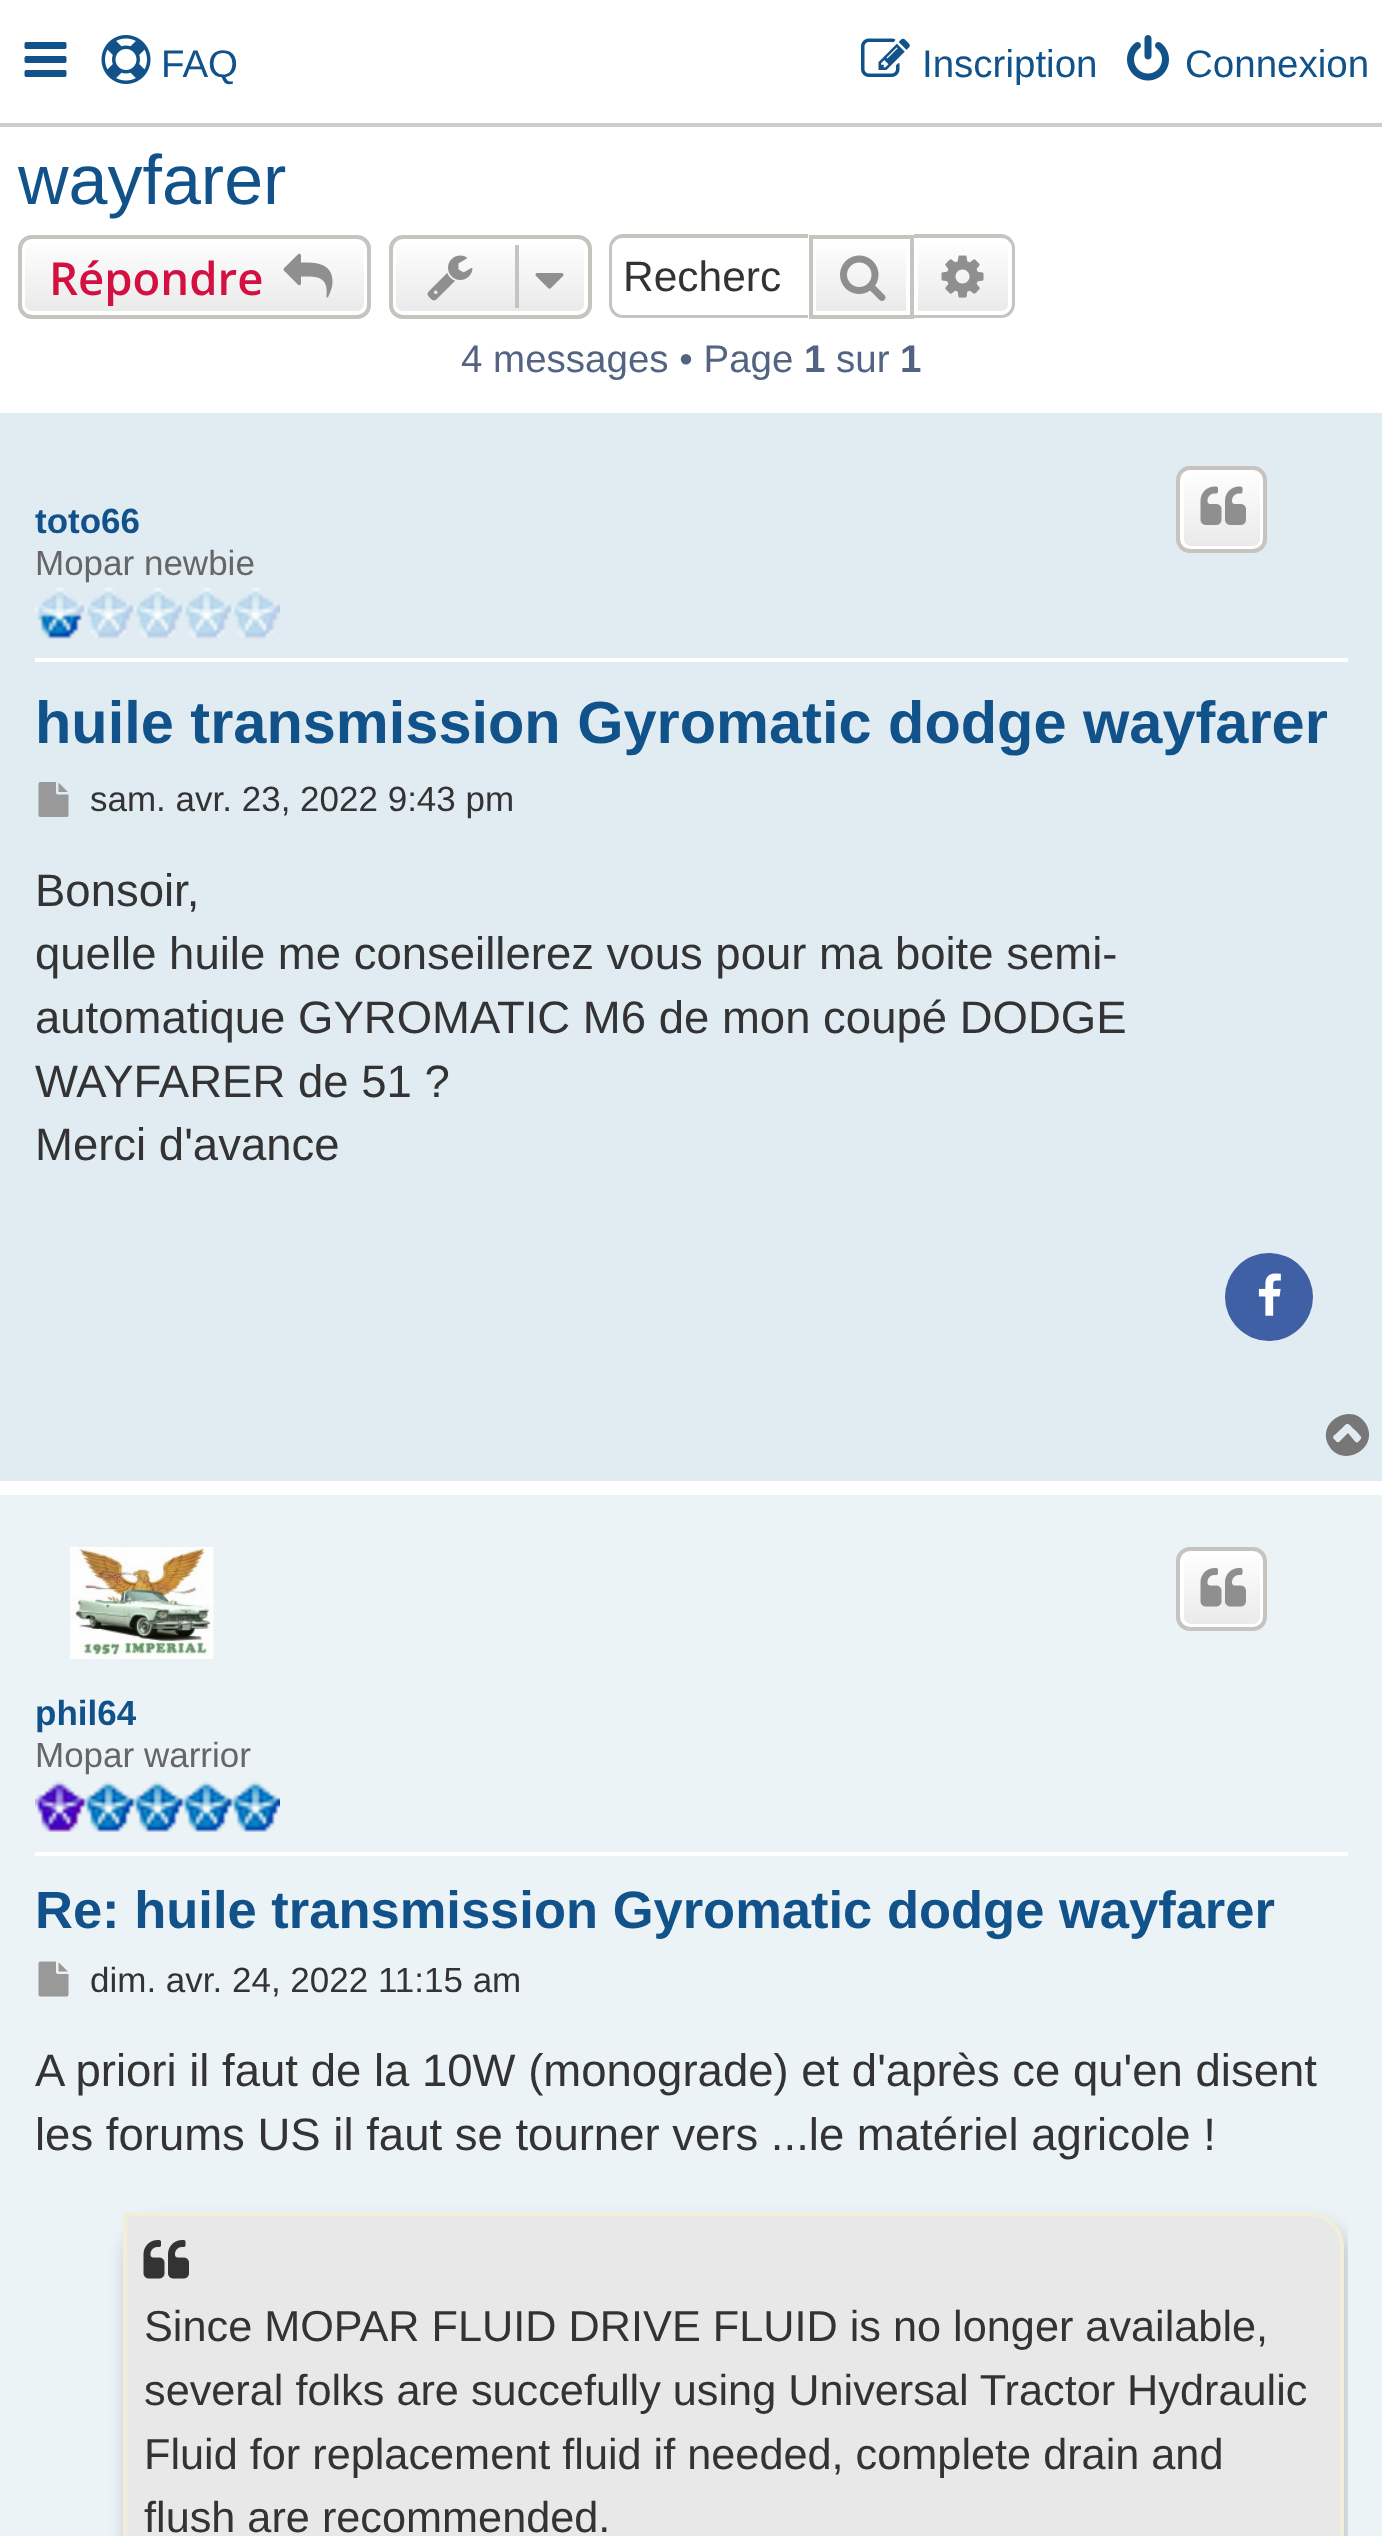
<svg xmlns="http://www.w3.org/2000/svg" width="1382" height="2536">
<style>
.a{font:38.5px Liberation Sans;fill:#105289}
.b{font:70px Liberation Sans;fill:#105289}
.c{font:600 45.5px Open Sans;fill:#d31141}
.d{font:42.5px Liberation Sans;fill:#333}
.e{font:38.5px Liberation Sans;fill:#536482}
.f{font:bold 38.5px Liberation Sans;fill:#536482}
.g{font:bold 35px Liberation Sans;fill:#105289}
.h{font:35px Liberation Sans;fill:#666}
.i{font:bold 59.5px Liberation Sans;fill:#105289}
.j{font:35px Liberation Sans;fill:#333}
.k{font:45.5px Liberation Sans;fill:#333}
.l{font:bold 52.5px Liberation Sans;fill:#105289}
.m{font:43.25px Liberation Sans;fill:#333}
</style>
<defs>
<clipPath id="clip1"><rect x="18" y="235" width="353" height="84" rx="14"/></clipPath>
<linearGradient id="g1" gradientUnits="userSpaceOnUse" x1="194" y1="238" x2="194" y2="315"><stop offset="0" stop-color="#fff"/><stop offset="1" stop-color="#e9e9e9"/></linearGradient>
<clipPath id="clip2"><rect x="389" y="235" width="203" height="84" rx="14"/></clipPath>
<linearGradient id="g2" gradientUnits="userSpaceOnUse" x1="490" y1="238" x2="490" y2="315"><stop offset="0" stop-color="#fff"/><stop offset="1" stop-color="#e9e9e9"/></linearGradient>
<linearGradient id="g3" gradientUnits="userSpaceOnUse" x1="861" y1="238" x2="861" y2="315"><stop offset="0" stop-color="#fff"/><stop offset="1" stop-color="#e9e9e9"/></linearGradient>
<linearGradient id="g4" gradientUnits="userSpaceOnUse" x1="963" y1="238" x2="963" y2="315"><stop offset="0" stop-color="#fff"/><stop offset="1" stop-color="#e9e9e9"/></linearGradient>
<clipPath id="clip3"><rect x="1176" y="466" width="91" height="87" rx="14"/></clipPath>
<linearGradient id="g5" gradientUnits="userSpaceOnUse" x1="1222" y1="469" x2="1222" y2="550"><stop offset="0" stop-color="#fff"/><stop offset="1" stop-color="#e9e9e9"/></linearGradient>
<clipPath id="clip4"><rect x="1176" y="1547" width="91" height="84" rx="14"/></clipPath>
<linearGradient id="g6" gradientUnits="userSpaceOnUse" x1="1222" y1="1551" x2="1222" y2="1628"><stop offset="0" stop-color="#fff"/><stop offset="1" stop-color="#e9e9e9"/></linearGradient>
<clipPath id="clip5"><path d="M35 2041h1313v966H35z"/></clipPath>
</defs>
<rect width="100%" height="100%" fill="#fff"/>
<path fill="#ccc" d="M0 123h1382v4H0z"/>
<image href="1.png" x="24" y="42" width="43" height="35"/>
<image href="2.png" x="101" y="35" width="50" height="49"/>
<image href="3.png" x="861" y="38" width="49" height="39"/>
<image href="4.png" x="1127" y="35" width="42" height="46"/>
<g clip-path="url(#clip1)">
<path fill="url(#g1)" d="M18 238h353v77H18z"/>
</g>
<rect fill="none" stroke="#fff" stroke-width="4" x="23" y="240" width="343" height="73" rx="9"/>
<rect fill="none" stroke="#c7c3bf" stroke-width="4" x="20" y="237" width="349" height="80" rx="12"/>
<image href="5.png" x="283" y="253" width="50" height="45"/>
<g clip-path="url(#clip2)">
<path fill="url(#g2)" d="M389 238h203v77H389z"/>
</g>
<rect fill="none" stroke="#fff" stroke-width="4" x="394" y="240" width="192" height="73" rx="9"/>
<rect fill="none" stroke="#c7c3bf" stroke-width="4" x="391" y="237" width="199" height="80" rx="12"/>
<image href="6.png" x="427" y="255" width="46" height="46"/>
<path fill="#c7c3bf" d="M515 245h4v63H515z"/>
<image href="7.png" x="535" y="273" width="29" height="16"/>
<path fill="#c7c3bf" fill-rule="evenodd" d="M623 234h185v84h-185c-8 0-14-6-14-14v-56c0-7 6-14 14-14zm0 4h185v77h-185c-6 0-11-5-11-11v-56c0-5 5-10 11-10z"/>
<path fill="url(#g3)" d="M816 247h90v64H816z"/>
<path fill="none" stroke="#c7c3bf" stroke-width="4" d="M811 237h101v80H811z"/>
<image href="8.png" x="840" y="255" width="46" height="46"/>
<path fill="url(#g4)" stroke="#fff" stroke-width="4" d="M916 240h85c5 0 9 4 9 9v55c0 5-4 9-9 9h-85z"/>
<path fill="#c7c3bf" fill-rule="evenodd" d="M914 234h87c8 0 14 7 14 14v56c0 8-6 14-14 14h-87zm0 4h87c6 0 11 5 11 10v56c0 6-5 11-11 11h-87z"/>
<image href="9.png" x="941" y="255" width="43" height="43"/>
<path fill="#e1ebf2" d="M0 413h1382v1068H0z"/>
<path fill="#fff" d="M35 658h1313v4H35z"/>
<image href="10.png" x="35" y="587" width="245" height="52"/>
<g clip-path="url(#clip3)">
<path fill="url(#g5)" d="M1176 469h91v81H1176z"/>
</g>
<rect fill="none" stroke="#fff" stroke-width="4" x="1182" y="471" width="80" height="77" rx="9"/>
<rect fill="none" stroke="#c7c3bf" stroke-width="4" x="1178" y="468" width="87" height="83" rx="12"/>
<image href="11.png" x="1200" y="486" width="46" height="39"/>
<image href="12.png" x="38" y="782" width="31" height="35"/>
<circle fill="#4060a5" cx="1269" cy="1297" r="44"/>
<image href="13.png" x="1258" y="1273" width="23" height="43"/>
<path fill="#777" d="M1358 1442c5-5 4-4-1-10c-12-11-7-11-19 0c-4 4-7 4-3 8c1 1 2 3 4 2l9-9l5 6c1 1 3 5 5 3zm8-18c14 24-23 45-37 22c-14-24 23-45 37-22z"/>
<path fill="#ecf3f7" d="M0 1495h1382v1041H0z"/>
<path fill="#fff" d="M35 1852h1313v4H35z"/>
<image href="14.png" x="70" y="1547" width="144" height="112"/>
<image href="15.png" x="35" y="1780" width="245" height="52"/>
<g clip-path="url(#clip4)">
<path fill="url(#g6)" d="M1176 1551h91v77H1176z"/>
</g>
<rect fill="none" stroke="#fff" stroke-width="4" x="1182" y="1553" width="80" height="73" rx="9"/>
<rect fill="none" stroke="#c7c3bf" stroke-width="4" x="1178" y="1549" width="87" height="80" rx="12"/>
<image href="16.png" x="1200" y="1568" width="46" height="39"/>
<image href="17.png" x="38" y="1961" width="31" height="36"/>
<g clip-path="url(#clip5)">
<rect fill="#00000033" filter="blur(9px)" x="126" y="2223" width="1222" height="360" rx="35"/>
</g>
<path fill="#e8e8e8" stroke="#f1efda" stroke-width="4" d="M125 2214h1184c18 0 33 15 33 33v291c0 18-15 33-33 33h-1151c-18 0-33-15-33-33z"/>
<image href="18.png" x="143" y="2240" width="46" height="39"/>
<text class="a" x="161" y="77">FAQ</text>
<text class="a" x="922" y="77">Inscription</text>
<text class="a" x="1185" y="77">Connexion</text>
<text class="b" x="18" y="204">wayfarer</text>
<text class="c" x="49" y="295">Répondre</text>
<text class="d" x="623" y="291">Recherc</text>
<text class="e" x="461" y="372">4 messages • Page</text>
<text class="f" x="804" y="372">1</text>
<text class="e" x="836" y="372">sur</text>
<text class="f" x="900" y="372">1</text>
<text class="g" x="35" y="533">toto66</text>
<text class="h" x="35" y="575">Mopar newbie</text>
<text class="i" x="35" y="743">huile transmission Gyromatic dodge wayfarer</text>
<text class="j" x="90" y="811">sam. avr. 23, 2022 9:43 pm</text>
<text class="k" x="35" y="906">Bonsoir,</text>
<text class="k" x="35" y="969">quelle huile me conseillerez vous pour ma boite semi-</text>
<text class="k" x="35" y="1033">automatique GYROMATIC M6 de mon coupé DODGE</text>
<text class="k" x="35" y="1097">WAYFARER de 51 ?</text>
<text class="k" x="35" y="1160">Merci d'avance</text>
<text class="g" x="35" y="1725">phil64</text>
<text class="h" x="35" y="1767">Mopar warrior</text>
<text class="l" x="35" y="1928">Re: huile transmission Gyromatic dodge wayfarer</text>
<text class="j" x="90" y="1992">dim. avr. 24, 2022 11:15 am</text>
<text class="k" x="35" y="2086">A priori il faut de la 10W (monograde) et d'après ce qu'en disent</text>
<text class="k" x="35" y="2150">les forums US il faut se tourner vers ...le matériel agricole !</text>
<text class="m" x="144" y="2341">Since MOPAR FLUID DRIVE FLUID is no longer available,</text>
<text class="m" x="144" y="2405">several folks are succefully using Universal Tractor Hydraulic</text>
<text class="m" x="144" y="2469">Fluid for replacement fluid if needed, complete drain and</text>
<text class="m" x="144" y="2532">flush are recommended.</text>
</svg>
